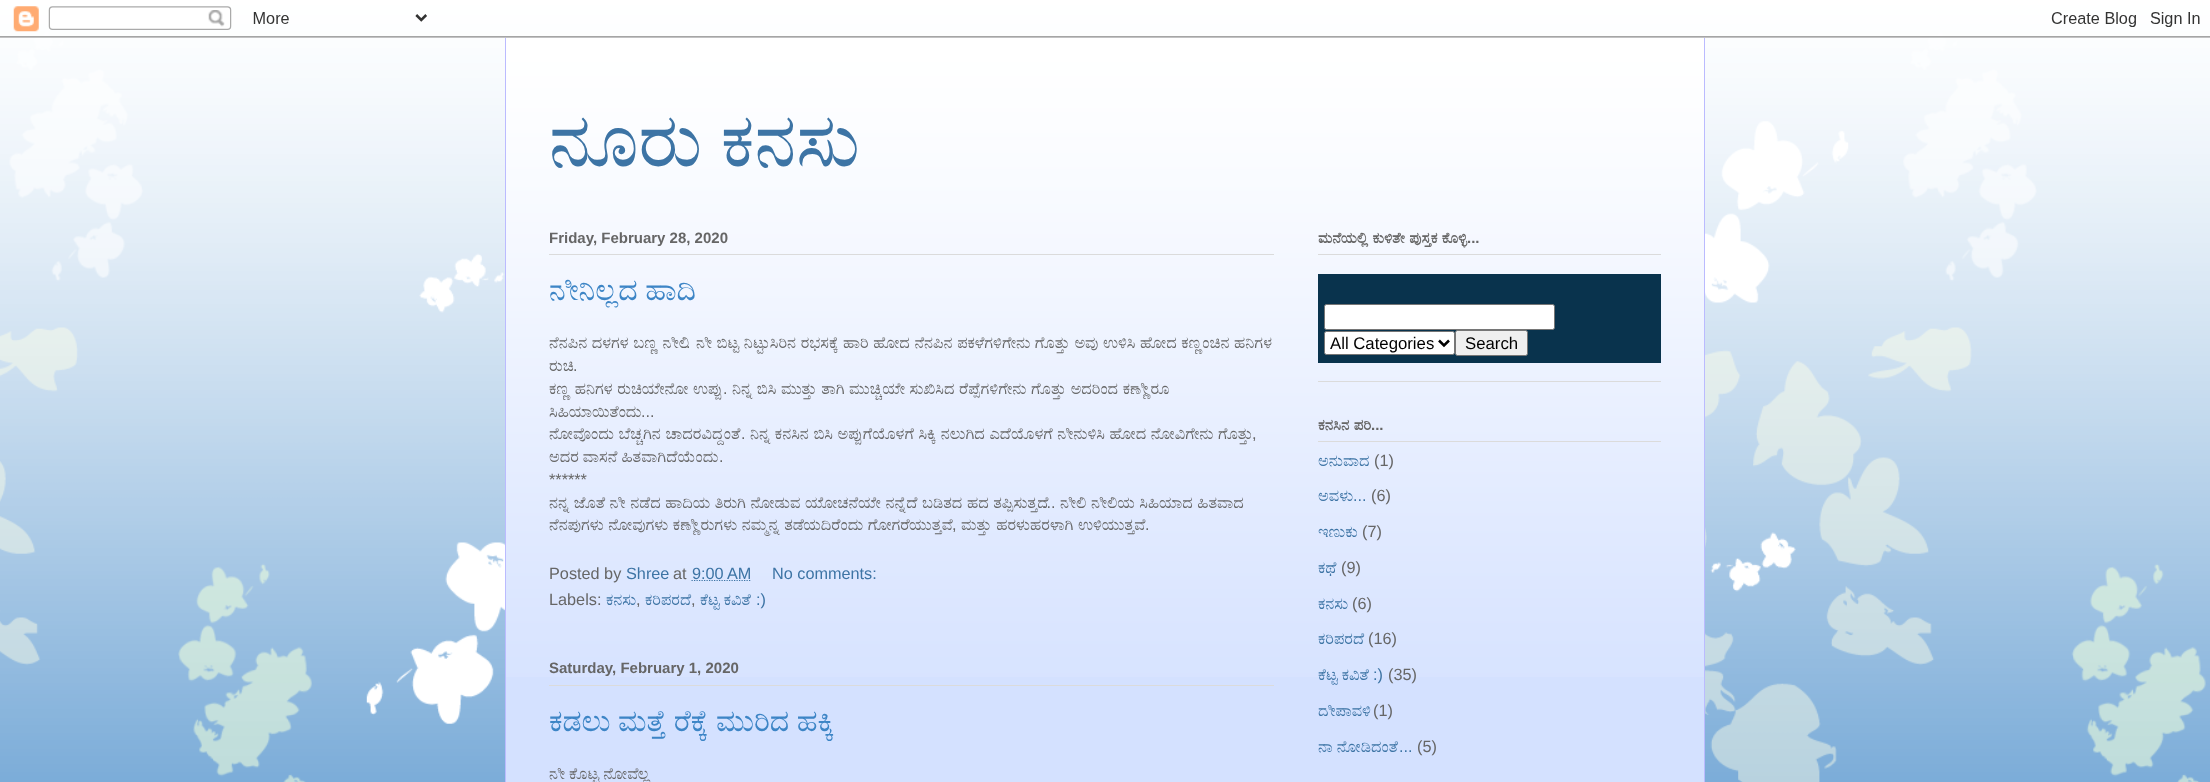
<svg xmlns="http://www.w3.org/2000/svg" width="2210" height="782">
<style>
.a{font:75px FreeSerif;fill:#3d74a5}
.b{font:bold 15px Liberation Sans;fill:#666}
.c{font:30px FreeSerif;fill:#3d85c6}
.d{font:16.25px FreeSerif;fill:#666}
.e{font:16.25px Liberation Sans;fill:#666}
.f{font:16.25px Liberation Sans;fill:#3d74a5}
.g{font:16.25px FreeSerif;fill:#3d74a5}
.h{font:bold 15px FreeSerif;fill:#666}
.i{font:16.75px Liberation Sans;fill:#000}
</style>
<defs>
<clipPath id="clip1"><path d="M549 71h1112v127H549z"/></clipPath>
</defs>
<rect width="100%" height="100%" fill="#3d85c6"/>
<image href="1.png" x="0" y="0" width="2210" height="782"/>
<image href="2.png" x="0" y="6" width="2210" height="32"/>
<path fill="#d4e1ff" d="M506 46h1198v736H506z"/>
<image href="3.png" x="506" y="38" width="1198" height="639"/>
<path fill="#bbf" d="M1704 38h1v744H1704z"/>
<path fill="#bbf" d="M505 38h1v744H505z"/>
<path fill="#dbdbdb" d="M549 254h725v1H549z"/>
<path fill="none" stroke="#3d74a5" stroke-width="1.2" stroke-dasharray="1.25 1.25" d="M691.5 580.5h59.5"/>
<path fill="#dbdbdb" d="M549 685h725v1H549z"/>
<path fill="#dbdbdb" d="M1318 381h343v1H1318z"/>
<path fill="#dbdbdb" d="M1318 254h343v1H1318z"/>
<path fill="#09334d" d="M1318 274h343v89H1318z"/>
<rect fill="#fff" stroke="#767676" x="1324.5" y="304.5" width="230" height="25" rx="2"/>
<rect fill="#fff" stroke="#767676" x="1324.5" y="331.5" width="130" height="23" rx="2"/>
<path fill="none" stroke="#000" stroke-width="2.5" d="M1439 340.5l5 5l5-5"/>
<rect fill="#efefef" stroke="#767676" x="1455.5" y="330.5" width="72" height="25" rx="2"/>
<path fill="#dbdbdb" d="M1318 441h343v1H1318z"/>
<g clip-path="url(#clip1)">
<text class="a" x="549" y="166">ನೂರು ಕನಸು</text>
</g>
<text class="b" x="549" y="243">Friday, February 28, 2020</text>
<text class="c" x="549" y="300">ನೀನಿಲ್ಲದ ಹಾದಿ</text>
<text class="d" x="549" y="348" word-spacing="0.5">ನೆನಪಿನ ದಳಗಳ ಬಣ್ಣ ನೀಲಿ</text>
<text class="e" x="686" y="348">.</text>
<text class="d" x="696" y="348" word-spacing="0.5">ನೀ ಬಿಟ್ಟ ನಿಟ್ಟುಸಿರಿನ ರಭಸಕ್ಕೆ ಹಾರಿ ಹೋದ ನೆನಪಿನ ಪಕಳೆಗಳಿಗೇನು ಗೊತ್ತು ಅವು ಉಳಿಸಿ ಹೋದ ಕಣ್ಣಂಚಿನ ಹನಿಗಳ</text>
<text class="d" x="549" y="371">ರುಚಿ</text>
<text class="e" x="573" y="371">.</text>
<text class="d" x="549" y="394" word-spacing="0.5">ಕಣ್ಣ ಹನಿಗಳ ರುಚಿಯೇನೋ ಉಪ್ಪು</text>
<text class="e" x="723" y="394">.</text>
<text class="d" x="732" y="394" word-spacing="0.5">ನಿನ್ನ ಬಿಸಿ ಮುತ್ತು ತಾಗಿ ಮುಚ್ಚಿಯೇ ಸುಖಿಸಿದ ರೆಪ್ಪೆಗಳಿಗೇನು ಗೊತ್ತು ಅದರಿಂದ ಕಣ್ಣೀರೂ</text>
<text class="d" x="549" y="417">ಸಿಹಿಯಾಯಿತೆಂದು</text>
<text class="e" x="641" y="417">...</text>
<text class="d" x="549" y="439" word-spacing="0.5">ನೋವೊಂದು ಬೆಚ್ಚಗಿನ ಚಾದರವಿದ್ದಂತೆ</text>
<text class="e" x="741" y="439">.</text>
<text class="d" x="750" y="439" word-spacing="0.5">ನಿನ್ನ ಕನಸಿನ ಬಿಸಿ ಅಪ್ಪುಗೆಯೊಳಗೆ ಸಿಕ್ಕಿ ನಲುಗಿದ ಎದೆಯೊಳಗೆ ನೀನುಳಿಸಿ ಹೋದ ನೋವಿಗೇನು ಗೊತ್ತು</text>
<text class="e" x="1252" y="439">,</text>
<text class="d" x="549" y="462">ಅದರ ವಾಸನೆ ಹಿತವಾಗಿದೆಯೆಂದು</text>
<text class="e" x="719" y="462">.</text>
<text class="e" x="549" y="485">******</text>
<text class="d" x="549" y="508" word-spacing="0.5">ನನ್ನ ಜೊತೆ ನೀ ನಡೆದ ಹಾದಿಯ ತಿರುಗಿ ನೋಡುವ ಯೋಚನೆಯೇ ನನ್ನೆದೆ ಬಡಿತದ ಹದ ತಪ್ಪಿಸುತ್ತದೆ</text>
<text class="e" x="1042" y="508">...</text>
<text class="d" x="1060" y="508" word-spacing="0.5">ನೀಲಿ ನೀಲಿಯ ಸಿಹಿಯಾದ ಹಿತವಾದ</text>
<text class="d" x="549" y="530" word-spacing="0.5">ನೆನಪುಗಳು ನೋವುಗಳು ಕಣ್ಣೀರುಗಳು ನಮ್ಮನ್ನ ತಡೆಯದಿರೆಂದು ಗೋಗರೆಯುತ್ತವೆ</text>
<text class="e" x="952" y="530">,</text>
<text class="d" x="961" y="530" word-spacing="0.5">ಮತ್ತು ಹರಳುಹರಳಾಗಿ ಉಳಿಯುತ್ತವೆ</text>
<text class="e" x="1145" y="530">.</text>
<text class="e" x="549" y="579">Posted by</text>
<text class="f" x="626" y="579">Shree</text>
<text class="e" x="673" y="579">at</text>
<text class="f" x="692" y="579">9:00 AM</text>
<text class="f" x="772" y="579">No comments:</text>
<text class="e" x="549" y="605">Labels:</text>
<text class="g" x="606" y="605">ಕನಸು</text>
<text class="e" x="636" y="605">,</text>
<text class="g" x="645" y="605">ಕರಿಪರದೆ</text>
<text class="e" x="691" y="605">,</text>
<text class="g" x="700" y="605">ಕೆಟ್ಟ ಕವಿತೆ</text>
<text class="f" x="756" y="605">:)</text>
<text class="b" x="549" y="673">Saturday, February 1, 2020</text>
<text class="c" x="549" y="731">ಕಡಲು ಮತ್ತೆ ರೆಕ್ಕೆ ಮುರಿದ ಹಕ್ಕಿ</text>
<text class="d" x="549" y="779">ನೀ ಕೊಟ್ಟ ನೋವೆಲ್ಲ</text>
<text class="h" x="1318" y="243" word-spacing="0.5">ಮನೆಯಲ್ಲಿ ಕುಳಿತೇ ಪುಸ್ತಕ ಕೊಳ್ಳಿ</text>
<text class="b" x="1467" y="243">...</text>
<text class="i" x="1330" y="349">All Categories</text>
<text class="i" x="1465" y="349">Search</text>
<text class="h" x="1318" y="430" word-spacing="0.5">ಕನಸಿನ ಪರಿ</text>
<text class="b" x="1371" y="430">...</text>
<text class="g" x="1318" y="466">ಅನುವಾದ</text>
<text class="e" x="1374" y="466">(1)</text>
<text class="g" x="1318" y="501">ಅವಳು</text>
<text class="f" x="1353" y="501">...</text>
<text class="e" x="1371" y="501">(6)</text>
<text class="g" x="1318" y="537">ಇಣುಕು</text>
<text class="e" x="1362" y="537">(7)</text>
<text class="g" x="1318" y="573">ಕಥೆ</text>
<text class="e" x="1341" y="573">(9)</text>
<text class="g" x="1318" y="609">ಕನಸು</text>
<text class="e" x="1352" y="609">(6)</text>
<text class="g" x="1318" y="644">ಕರಿಪರದೆ</text>
<text class="e" x="1368" y="644">(16)</text>
<text class="g" x="1318" y="680">ಕೆಟ್ಟ ಕವಿತೆ</text>
<text class="f" x="1373" y="680">:)</text>
<text class="e" x="1388" y="680">(35)</text>
<text class="g" x="1318" y="716">ದೀಪಾವಳಿ</text>
<text class="e" x="1373" y="716">(1)</text>
<text class="g" x="1318" y="752">ನಾ ನೋಡಿದಂತೆ</text>
<text class="f" x="1399" y="752">...</text>
<text class="e" x="1417" y="752">(5)</text>
</svg>
